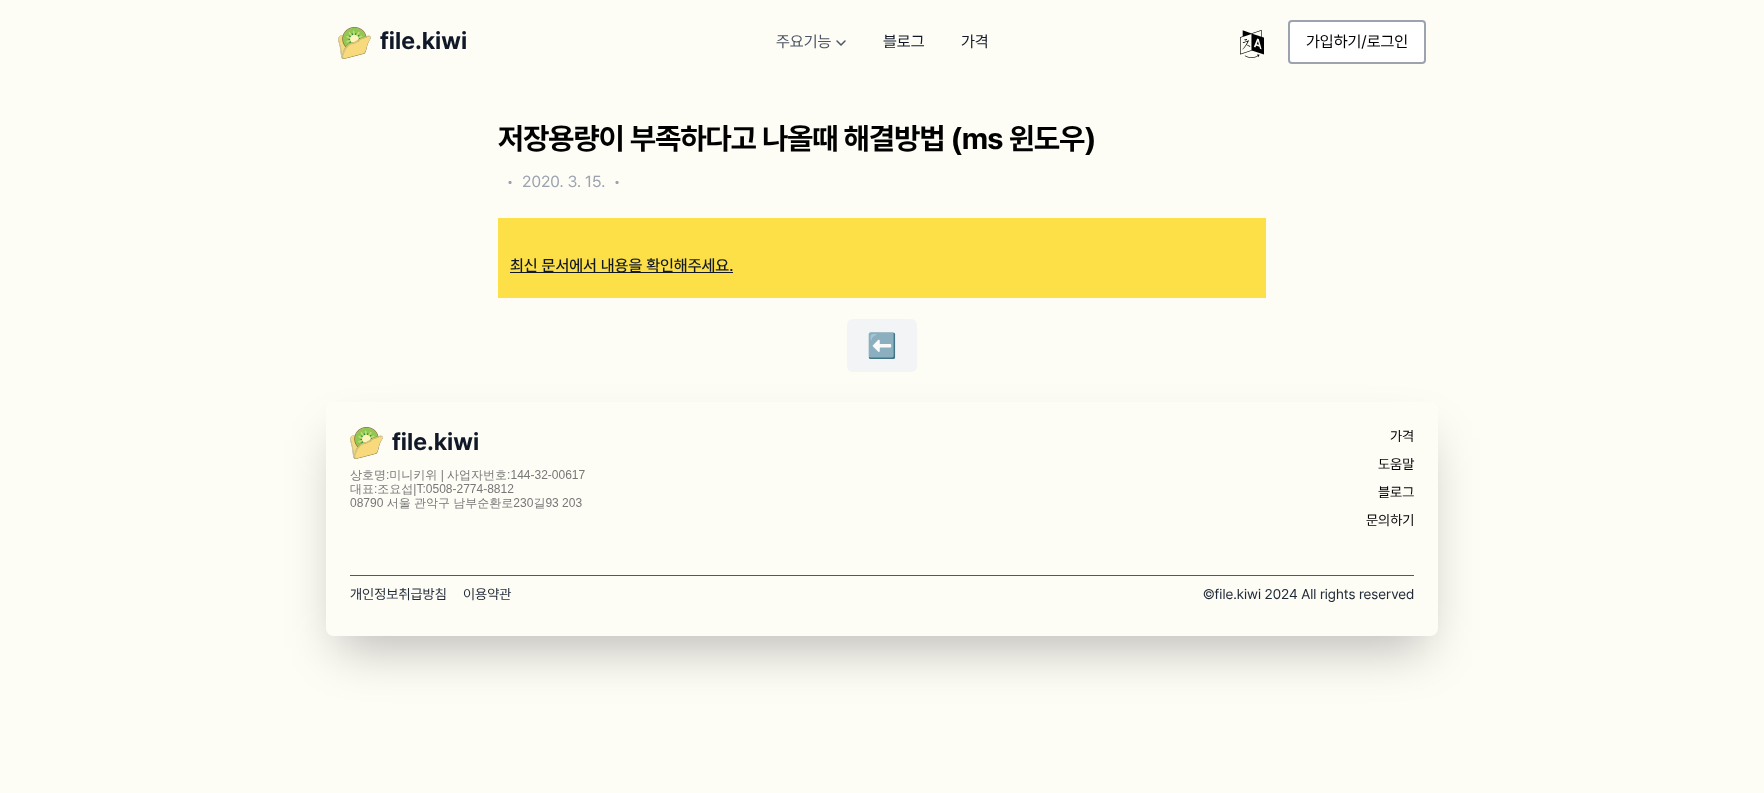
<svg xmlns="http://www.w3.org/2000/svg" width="1764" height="793">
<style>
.a{font:bold 24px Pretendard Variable;fill:#111827}
.b{font:16px Pretendard Variable;fill:#4b5563}
.c{font:16px Pretendard Variable;fill:#111827}
.d{font:16px Pretendard Variable;fill:#000}
.e{font:bold 30px Pretendard Variable;letter-spacing:-0.75px;fill:#000}
.f{font:16px Pretendard Variable;fill:#9ca3af}
.g{font:500 16px Pretendard Variable;fill:#111827}
.h{font:24px Noto Color Emoji;fill:#000}
.i{font:14px Pretendard Variable;fill:#000}
.j{font:14px Pretendard Variable;fill:#1f2937}
</style>
<defs>
<clipPath id="clip1"><path d="M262 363h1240v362h-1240zm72 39h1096c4.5 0 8 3.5 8 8v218c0 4.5-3.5 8-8 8h-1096c-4.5 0-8-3.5-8-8v-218c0-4.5 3.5-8 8-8z" clip-rule="evenodd"/></clipPath>
</defs>
<rect width="100%" height="100%" fill="#fdfcf5"/>
<image href="1.png" x="338" y="27" width="33" height="32"/>
<path fill="none" stroke="#4b5563" stroke-width="1.5" stroke-linecap="round" stroke-linejoin="round" d="M845 41l-4 4l-4-4"/>
<image href="2.png" x="1240" y="30" width="24" height="28"/>
<rect fill="#fff" stroke="#9ca3af" stroke-width="2" x="1289" y="21" width="136" height="42" rx="3"/>
<path fill="#fde047" d="M498 218h768v80H498z"/>
<path fill="#111827" d="M510 272h223v1H510z"/>
<g clip-path="url(#clip1)">
<path fill="#00000040" filter="blur(25px)" d="M338 439h1088v210H338z"/>
</g>
<rect fill="#f3f4f6" x="847" y="319" width="70" height="53" rx="6"/>
<image href="1.png" x="350" y="427" width="33" height="32"/>
<image href="3.png" x="350" y="470" width="235" height="39"/>
<path fill="#854d0e" d="M350 575h1064v1H350z"/>
<text class="a" x="380" y="49">file.kiwi</text>
<text class="b" x="776" y="47">주요기능</text>
<text class="c" x="883" y="47">블로그</text>
<text class="c" x="961" y="47">가격</text>
<text class="d" x="1306" y="47">가입하기/로그인</text>
<text class="e" x="498" y="149">저장용량이 부족하다고 나올때 해결방법 (ms 윈도우)</text>
<text class="f" x="506" y="187">•</text>
<text class="f" x="522" y="187">2020. 3. 15.</text>
<text class="f" x="613" y="187">•</text>
<text class="g" x="510" y="271">최신 문서에서 내용을 확인해주세요.</text>
<text class="h" x="867" y="354">⬅️</text>
<text class="a" x="392" y="450">file.kiwi</text>
<text class="i" x="1390" y="441">가격</text>
<text class="i" x="1378" y="469">도움말</text>
<text class="i" x="1378" y="497">블로그</text>
<text class="i" x="1366" y="525">문의하기</text>
<text class="j" x="350" y="599">개인정보취급방침</text>
<text class="j" x="463" y="599">이용약관</text>
<text class="j" x="1203" y="599">©file.kiwi 2024 All rights reserved</text>
</svg>
